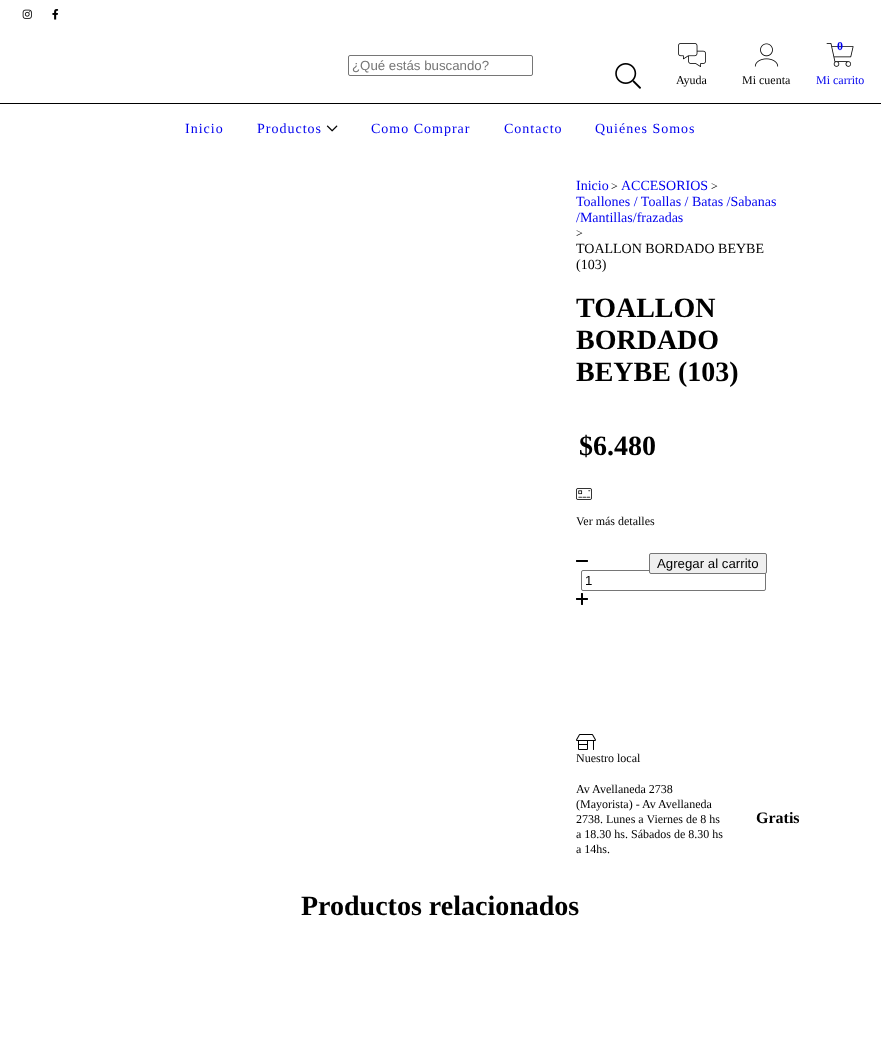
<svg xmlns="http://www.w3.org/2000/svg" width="881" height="1049">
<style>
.a{font:13.25px Liberation Sans;fill:#757575}
.b{font:12px Liberation Serif;fill:#000}
.c{font:bold 12px Liberation Serif;fill:#00e}
.d{font:12px Liberation Serif;fill:#00e}
.e{font:14px Liberation Serif;letter-spacing:1px;fill:#00e}
.f{font:14px Liberation Serif;fill:#00e}
.g{font:14px Liberation Serif;fill:#000}
.h{font:bold 28px Liberation Serif;fill:#000}
.i{font:13.25px Liberation Sans;fill:#000}
.j{font:bold 16px Liberation Serif;fill:#000}
</style>
<rect width="100%" height="100%" fill="#fff"/>
<image href="1.png" x="22" y="9" width="10" height="10"/>
<image href="2.png" x="52" y="9" width="7" height="11"/>
<rect fill="none" stroke="#767676" x="348.5" y="55.5" width="184" height="20" rx="1.5"/>
<image href="3.png" x="615" y="63" width="26" height="26"/>
<image href="4.png" x="678" y="43" width="28" height="24"/>
<image href="5.png" x="754" y="43" width="25" height="24"/>
<image href="6.png" x="826" y="43" width="28" height="24"/>
<path fill="#000" d="M0 103h881v1H0z"/>
<image href="7.png" x="326" y="125" width="12" height="7"/>
<image href="8.png" x="576" y="488" width="16" height="12"/>
<rect fill="none" stroke="#767676" x="581.5" y="570.5" width="184" height="20" rx="1.5"/>
<rect fill="#efefef" stroke="#767676" x="649.5" y="553.5" width="117" height="20" rx="1.5"/>
<image href="9.png" x="576" y="560" width="12" height="2"/>
<image href="10.png" x="576" y="593" width="12" height="12"/>
<image href="11.png" x="576" y="734" width="20" height="16"/>
<text class="a" x="352" y="70">¿Qué estás buscando?</text>
<text class="b" x="676" y="84">Ayuda</text>
<text class="b" x="742" y="84">Mi cuenta</text>
<text class="c" x="837" y="50">0</text>
<text class="d" x="816" y="84">Mi carrito</text>
<text class="e" x="185" y="133">Inicio</text>
<text class="e" x="257" y="133">Productos</text>
<text class="e" x="371" y="133">Como Comprar</text>
<text class="e" x="504" y="133">Contacto</text>
<text class="e" x="595" y="133">Quiénes Somos</text>
<text class="f" x="576" y="190">Inicio</text>
<text class="b" x="611" y="190">&gt;</text>
<text class="f" x="621" y="190">ACCESORIOS</text>
<text class="b" x="711" y="190">&gt;</text>
<text class="f" x="576" y="206">Toallones / Toallas / Batas /Sabanas</text>
<text class="f" x="576" y="222">/Mantillas/frazadas</text>
<text class="b" x="576" y="237">&gt;</text>
<text class="g" x="576" y="253">TOALLON BORDADO BEYBE</text>
<text class="g" x="576" y="269">(103)</text>
<text class="h" x="576" y="317">TOALLON</text>
<text class="h" x="576" y="349">BORDADO</text>
<text class="h" x="576" y="381">BEYBE (103)</text>
<text class="h" x="579" y="455">$6.480</text>
<text class="b" x="576" y="525">Ver más detalles</text>
<text class="i" x="657" y="568">Agregar al carrito</text>
<text class="i" x="585" y="585">1</text>
<text class="b" x="576" y="762">Nuestro local</text>
<text class="b" x="576" y="793">Av Avellaneda 2738</text>
<text class="b" x="576" y="808">(Mayorista) - Av Avellaneda</text>
<text class="b" x="576" y="823">2738. Lunes a Viernes de 8 hs</text>
<text class="b" x="576" y="838">a 18.30 hs. Sábados de 8.30 hs</text>
<text class="b" x="576" y="853">a 14hs.</text>
<text class="j" x="756" y="823">Gratis</text>
<text class="h" x="301" y="915">Productos relacionados</text>
</svg>
